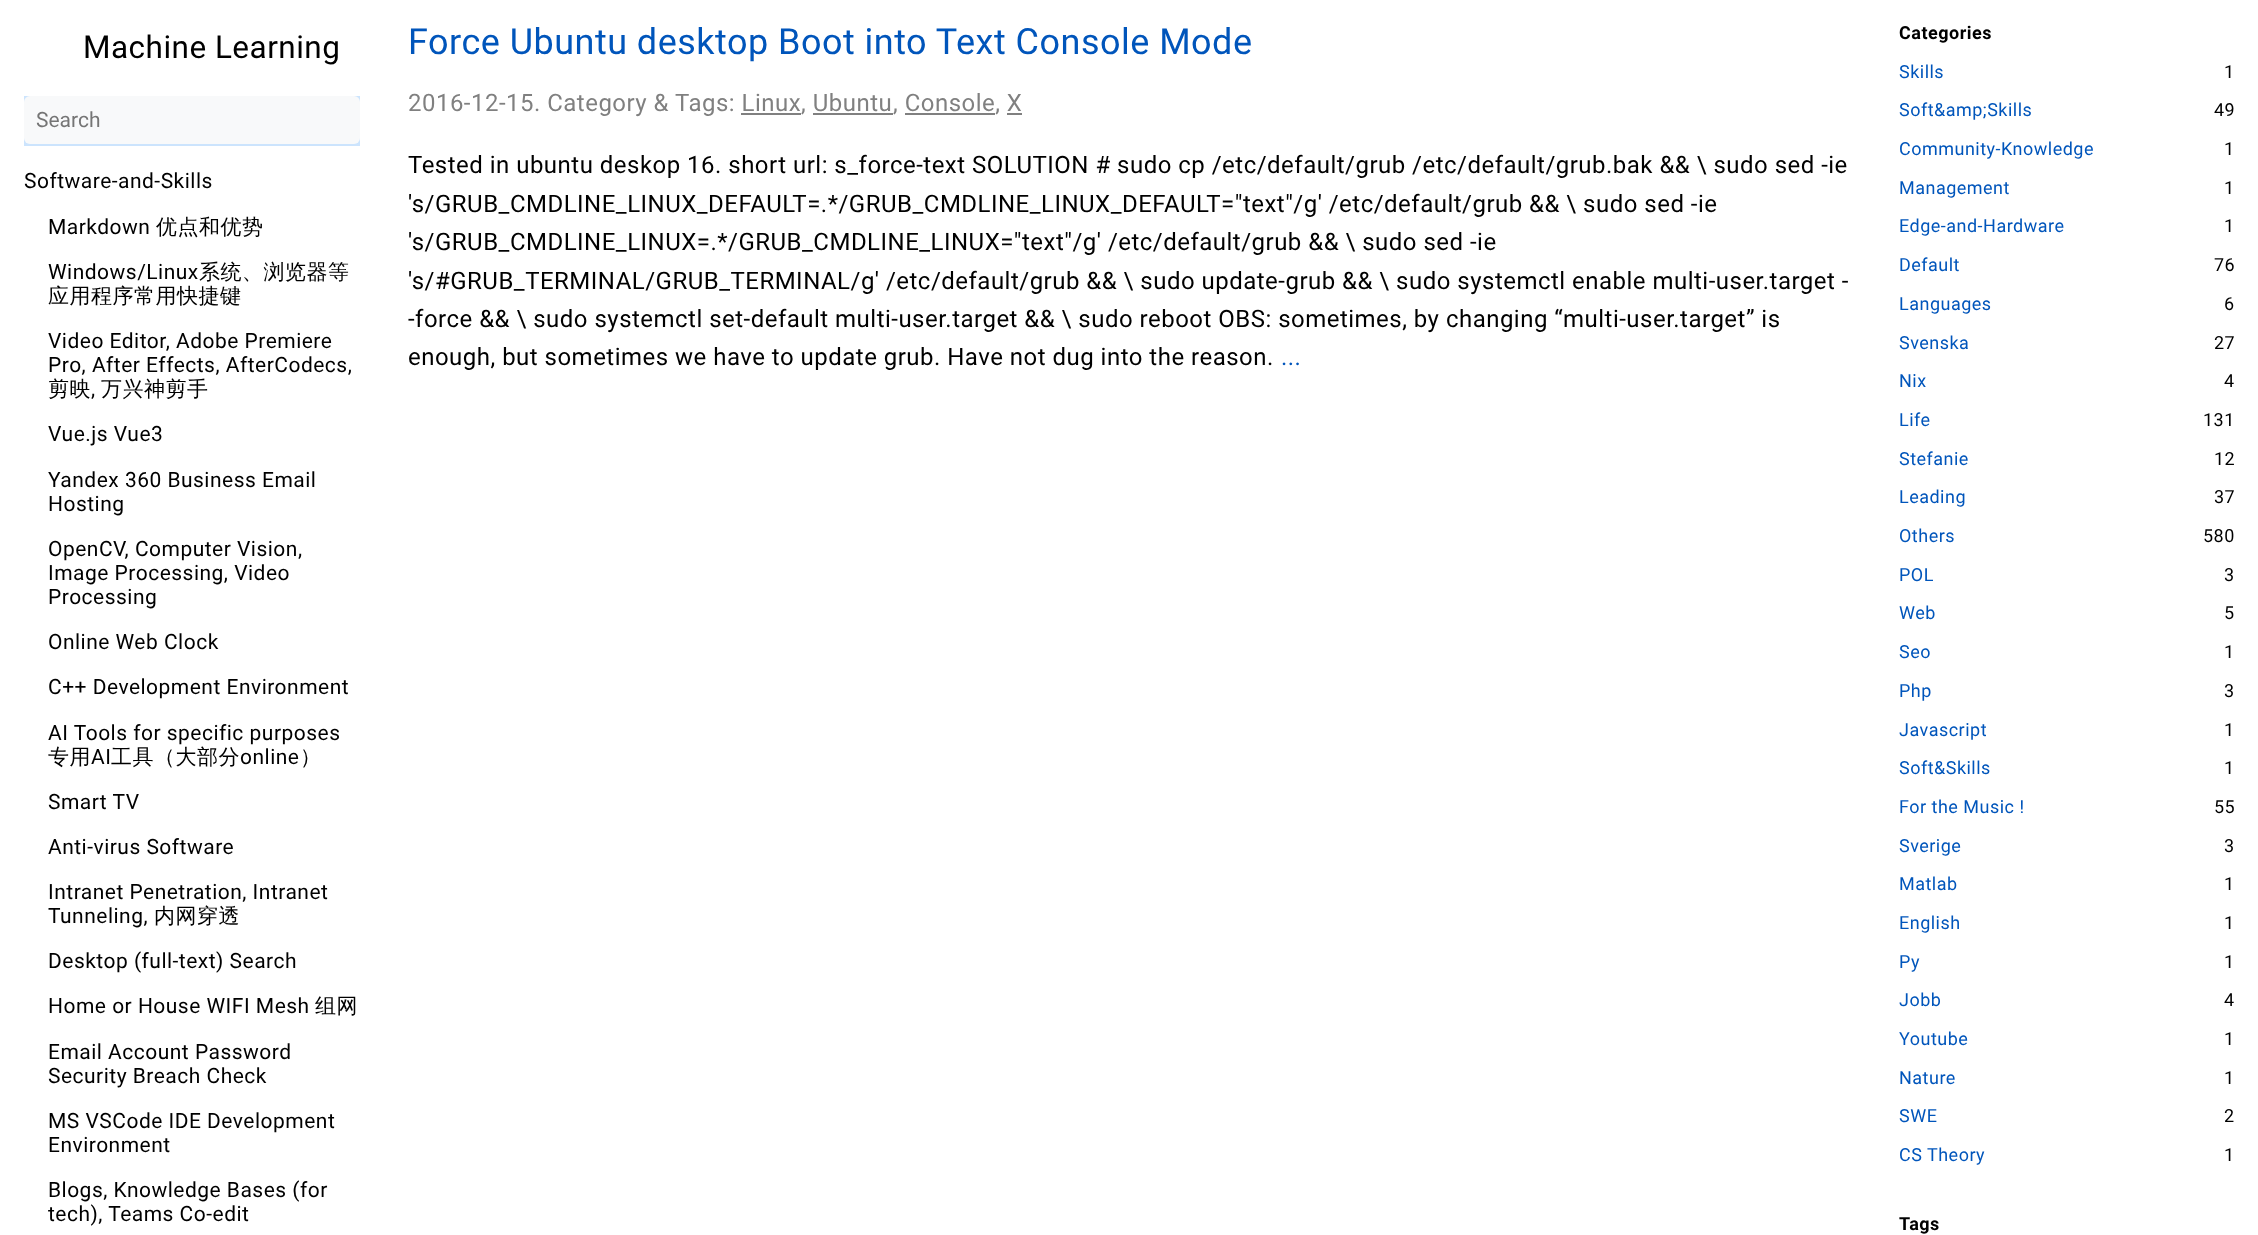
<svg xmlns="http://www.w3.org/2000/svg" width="2258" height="1235">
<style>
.a{font:31.5px Roboto;letter-spacing:0.49px;fill:#000}
.b{font:21px Roboto;fill:#757575}
.c{font:21px Roboto;letter-spacing:0.49px;fill:#000}
.d{font:500 21px WenQuanYi Zen Hei;letter-spacing:0.49px;fill:#000}
.e{font:36px Roboto;letter-spacing:0.49px;fill:#05b}
.f{font:24px Roboto;letter-spacing:0.49px;fill:#808080}
.g{font:24px Roboto;letter-spacing:0.49px;fill:#000}
.h{font:24px Roboto;letter-spacing:0.49px;fill:#05b}
.i{font:bold 18px Roboto;letter-spacing:0.49px;fill:#000}
.j{font:18px Roboto;letter-spacing:0.49px;fill:#05b}
.k{font:18px Roboto;letter-spacing:0.49px;fill:#000}
</style>
<rect width="100%" height="100%" fill="#fff"/>
<path fill="#cce4fd" d="M24 96h336v50H24z"/>
<rect fill="#f8f9fa" x="24" y="96" width="336" height="48" rx="6"/>
<path fill="#808080" d="M741 113h60v2H741z"/>
<path fill="#808080" d="M813 113h80v2H813z"/>
<path fill="#808080" d="M905 113h90v2H905z"/>
<path fill="#808080" d="M1007 113h15v2H1007z"/>
<text class="a" x="83" y="58">Machine Learning</text>
<text class="b" x="36" y="127">Search</text>
<text class="c" x="24" y="188">Software-and-Skills</text>
<text class="c" x="48" y="234">Markdown</text>
<text class="d" x="156" y="234">优点和优势</text>
<text class="c" x="48" y="279">Windows/Linux</text>
<text class="d" x="199" y="279">系统、浏览器等</text>
<text class="d" x="48" y="303">应用程序常用快捷键</text>
<text class="c" x="48" y="348">Video Editor, Adobe Premiere</text>
<text class="c" x="48" y="372">Pro, After Effects, AfterCodecs,</text>
<text class="d" x="48" y="396">剪映</text>
<text class="c" x="91" y="396">,</text>
<text class="d" x="101" y="396">万兴神剪手</text>
<text class="c" x="48" y="441">Vue.js Vue3</text>
<text class="c" x="48" y="487">Yandex 360 Business Email</text>
<text class="c" x="48" y="511">Hosting</text>
<text class="c" x="48" y="556">OpenCV, Computer Vision,</text>
<text class="c" x="48" y="580">Image Processing, Video</text>
<text class="c" x="48" y="604">Processing</text>
<text class="c" x="48" y="649">Online Web Clock</text>
<text class="c" x="48" y="694">C++ Development Environment</text>
<text class="c" x="48" y="740">AI Tools for specific purposes</text>
<text class="d" x="48" y="764">专用</text>
<text class="c" x="91" y="764">AI</text>
<text class="d" x="111" y="764">工具（大部分</text>
<text class="c" x="240" y="764">online</text>
<text class="d" x="300" y="764">）</text>
<text class="c" x="48" y="809">Smart TV</text>
<text class="c" x="48" y="854">Anti-virus Software</text>
<text class="c" x="48" y="899">Intranet Penetration, Intranet</text>
<text class="c" x="48" y="923">Tunneling,</text>
<text class="d" x="154" y="923">内网穿透</text>
<text class="c" x="48" y="968">Desktop (full-text) Search</text>
<text class="c" x="48" y="1013">Home or House WIFI Mesh</text>
<text class="d" x="315" y="1013">组网</text>
<text class="c" x="48" y="1059">Email Account Password</text>
<text class="c" x="48" y="1083">Security Breach Check</text>
<text class="c" x="48" y="1128">MS VSCode IDE Development</text>
<text class="c" x="48" y="1152">Environment</text>
<text class="c" x="48" y="1197">Blogs, Knowledge Bases (for</text>
<text class="c" x="48" y="1221">tech), Teams Co-edit</text>
<text class="e" x="408" y="54">Force Ubuntu desktop Boot into Text Console Mode</text>
<text class="f" x="408" y="111">2016-12-15. Category &amp; Tags: Linux, Ubuntu</text>
<text class="f" x="893" y="111">, Console, X</text>
<text class="g" x="408" y="173">Tested in ubuntu deskop 16. short url: s_force-text SOLUTION # sudo cp /etc/default/grub /etc/default/grub.bak &amp;&amp; \ sudo sed -ie</text>
<text class="g" x="408" y="212">'s/GRUB_CMDLINE_LINUX_DEFAULT=.*/GRUB_CMDLINE_LINUX_DEFAULT="text"/g' /etc/default/grub &amp;&amp; \ sudo sed -ie</text>
<text class="g" x="408" y="250">'s/GRUB_CMDLINE_LINUX=.*/GRUB_CMDLINE_LINUX="text"/g' /etc/default/grub &amp;&amp; \ sudo sed -ie</text>
<text class="g" x="408" y="289">'s/#GRUB_TERMINAL/GRUB_TERMINAL/g' /etc/default/grub &amp;&amp; \ sudo update-grub &amp;&amp; \ sudo systemctl enable multi-user.target -</text>
<text class="g" x="408" y="327">-force &amp;&amp; \ sudo systemctl set-default multi-user.target &amp;&amp; \ sudo reboot OBS: sometimes, by changing “multi-user.target” is</text>
<text class="g" x="408" y="365">enough, but sometimes we have to update grub. Have not dug into the reason.</text>
<text class="h" x="1281" y="365">...</text>
<text class="i" x="1899" y="39">Categories</text>
<text class="j" x="1899" y="78">Skills</text>
<text class="k" x="2224" y="78">1</text>
<text class="j" x="1899" y="116">Soft&amp;amp;Skills</text>
<text class="k" x="2214" y="116">49</text>
<text class="j" x="1899" y="155">Community-Knowledge</text>
<text class="k" x="2224" y="155">1</text>
<text class="j" x="1899" y="194">Management</text>
<text class="k" x="2224" y="194">1</text>
<text class="j" x="1899" y="232">Edge-and-Hardware</text>
<text class="k" x="2224" y="232">1</text>
<text class="j" x="1899" y="271">Default</text>
<text class="k" x="2214" y="271">76</text>
<text class="j" x="1899" y="310">Languages</text>
<text class="k" x="2224" y="310">6</text>
<text class="j" x="1899" y="349">Svenska</text>
<text class="k" x="2214" y="349">27</text>
<text class="j" x="1899" y="387">Nix</text>
<text class="k" x="2224" y="387">4</text>
<text class="j" x="1899" y="426">Life</text>
<text class="k" x="2203" y="426">131</text>
<text class="j" x="1899" y="465">Stefanie</text>
<text class="k" x="2214" y="465">12</text>
<text class="j" x="1899" y="503">Leading</text>
<text class="k" x="2214" y="503">37</text>
<text class="j" x="1899" y="542">Others</text>
<text class="k" x="2203" y="542">580</text>
<text class="j" x="1899" y="581">POL</text>
<text class="k" x="2224" y="581">3</text>
<text class="j" x="1899" y="619">Web</text>
<text class="k" x="2224" y="619">5</text>
<text class="j" x="1899" y="658">Seo</text>
<text class="k" x="2224" y="658">1</text>
<text class="j" x="1899" y="697">Php</text>
<text class="k" x="2224" y="697">3</text>
<text class="j" x="1899" y="736">Javascript</text>
<text class="k" x="2224" y="736">1</text>
<text class="j" x="1899" y="774">Soft&amp;Skills</text>
<text class="k" x="2224" y="774">1</text>
<text class="j" x="1899" y="813">For the Music !</text>
<text class="k" x="2214" y="813">55</text>
<text class="j" x="1899" y="852">Sverige</text>
<text class="k" x="2224" y="852">3</text>
<text class="j" x="1899" y="890">Matlab</text>
<text class="k" x="2224" y="890">1</text>
<text class="j" x="1899" y="929">English</text>
<text class="k" x="2224" y="929">1</text>
<text class="j" x="1899" y="968">Py</text>
<text class="k" x="2224" y="968">1</text>
<text class="j" x="1899" y="1006">Jobb</text>
<text class="k" x="2224" y="1006">4</text>
<text class="j" x="1899" y="1045">Youtube</text>
<text class="k" x="2224" y="1045">1</text>
<text class="j" x="1899" y="1084">Nature</text>
<text class="k" x="2224" y="1084">1</text>
<text class="j" x="1899" y="1122">SWE</text>
<text class="k" x="2224" y="1122">2</text>
<text class="j" x="1899" y="1161">CS Theory</text>
<text class="k" x="2224" y="1161">1</text>
<text class="i" x="1899" y="1230">Tags</text>
</svg>
